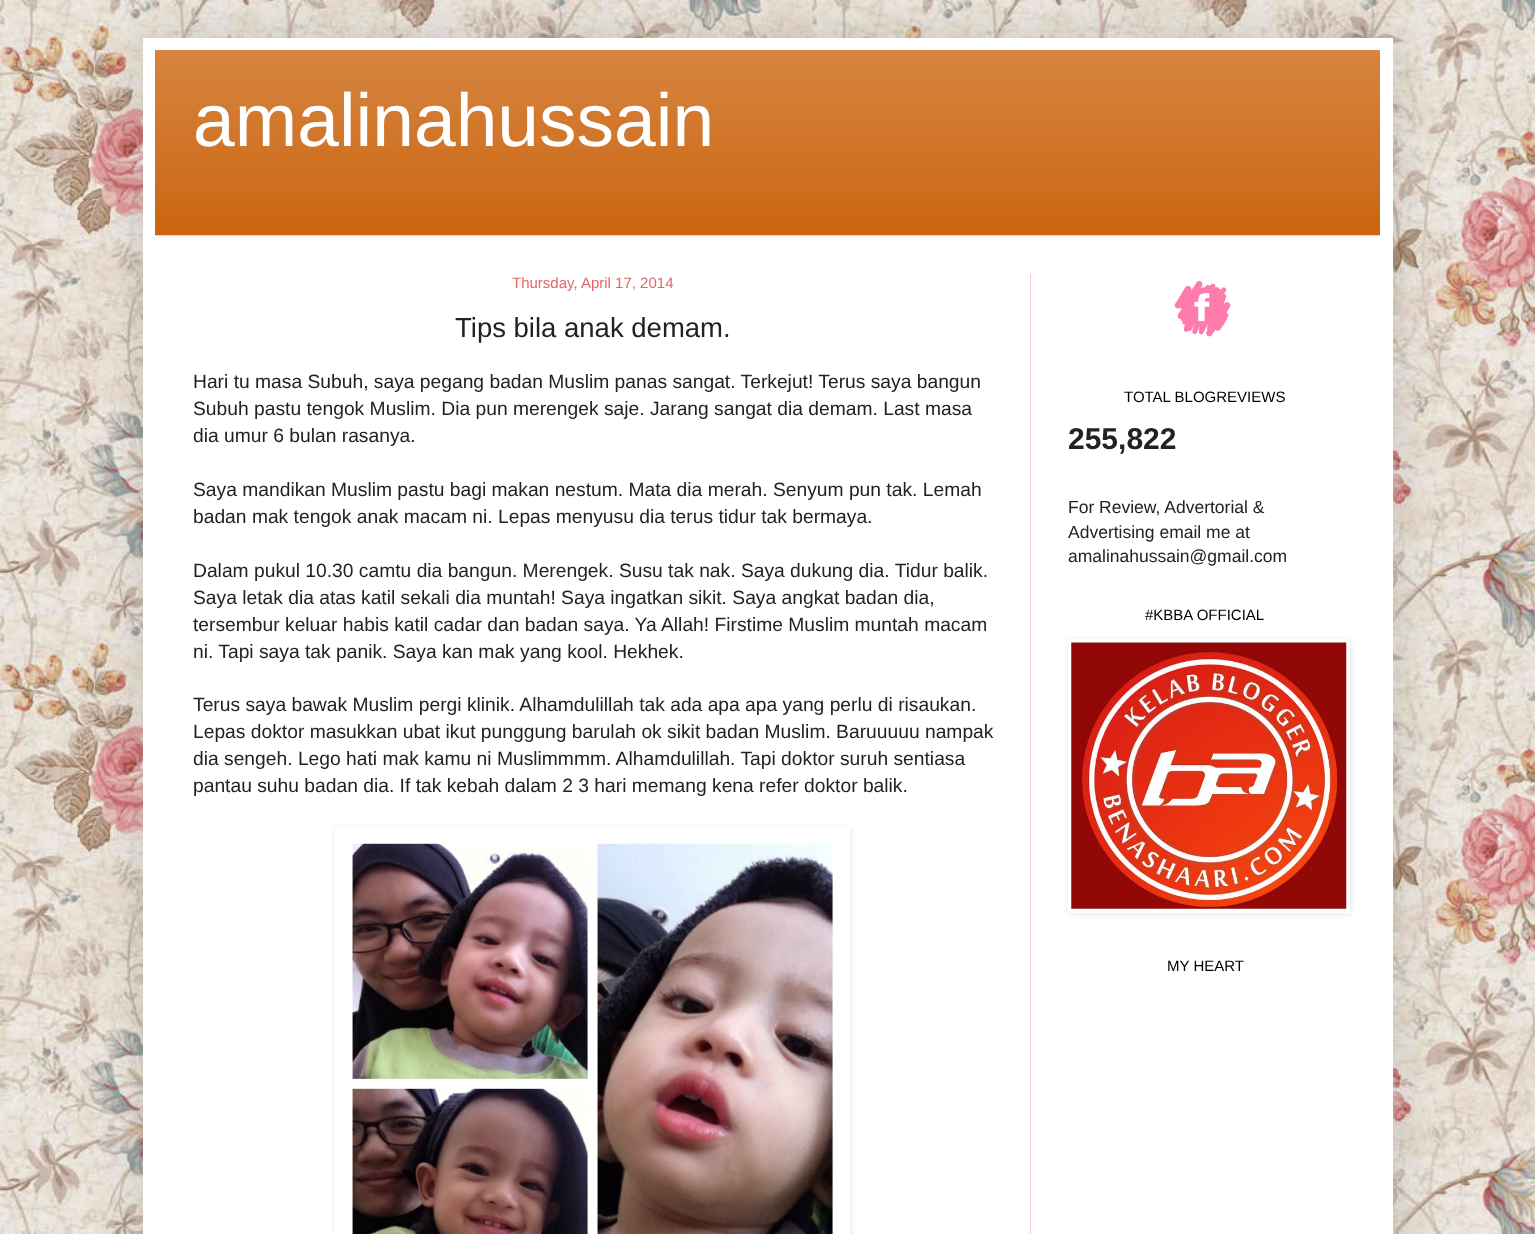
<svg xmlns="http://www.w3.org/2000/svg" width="1535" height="1234">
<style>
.a{font:75px Liberation Sans;fill:#fff}
.b{font:15px Liberation Sans;fill:#e06666}
.c{font:27.5px Liberation Sans;fill:#222}
.d{font:19.25px Liberation Sans;fill:#222}
.e{font:15px Liberation Sans;fill:#000}
.f{font:bold 30px Liberation Sans;fill:#222}
.g{font:17.5px Liberation Sans;fill:#222}
</style>
<rect width="100%" height="100%" fill="#fff"/>
<image href="1.png" x="0" y="500" width="1535" height="734"/>
<image href="2.png" x="0" y="0" width="1535" height="500"/>
<path fill="#00000026" filter="blur(25px)" d="M143 38h1250v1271H143z"/>
<path fill="#fff" d="M143 38h1250v1196H143z"/>
<path fill="#c61" d="M155 50h1225v185H155z"/>
<image href="3.png" x="155" y="50" width="1225" height="166"/>
<path fill="#f4cccc" d="M155 235h1225v1H155z"/>
<path fill="#f4cccc" d="M1030 274h1v960H1030z"/>
<path fill="#0000001a" filter="blur(3px)" d="M336 828h515v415H336z"/>
<path fill="#fff" d="M335 826h515v408H335z"/>
<image href="4.png" x="349" y="842" width="485" height="392"/>
<image href="5.png" x="1174" y="280" width="57" height="57"/>
<path fill="#0000001a" filter="blur(3px)" d="M1069 640h282v274H1069z"/>
<path fill="#fff" d="M1068 639h282v274H1068z"/>
<image href="6.png" x="1071" y="642" width="276" height="267"/>
<text class="a" x="193" y="146">amalinahussain</text>
<text class="b" x="512" y="288">Thursday, April 17, 2014</text>
<text class="c" x="455" y="337">Tips bila anak demam.</text>
<text class="d" x="193" y="388">Hari tu masa Subuh, saya pegang badan Muslim panas sangat. Terkejut! Terus saya bangun</text>
<text class="d" x="193" y="415">Subuh pastu tengok Muslim. Dia pun merengek saje. Jarang sangat dia demam. Last masa</text>
<text class="d" x="193" y="442">dia umur 6 bulan rasanya.</text>
<text class="d" x="193" y="496">Saya mandikan Muslim pastu bagi makan nestum. Mata dia merah. Senyum pun tak. Lemah</text>
<text class="d" x="193" y="523">badan mak tengok anak macam ni. Lepas menyusu dia terus tidur tak bermaya.</text>
<text class="d" x="193" y="577">Dalam pukul 10.30 camtu dia bangun. Merengek. Susu tak nak. Saya dukung dia. Tidur balik.</text>
<text class="d" x="193" y="604">Saya letak dia atas katil sekali dia muntah! Saya ingatkan sikit. Saya angkat badan dia,</text>
<text class="d" x="193" y="631">tersembur keluar habis katil cadar dan badan saya. Ya Allah! Firstime Muslim muntah macam</text>
<text class="d" x="193" y="658">ni. Tapi saya tak panik. Saya kan mak yang kool. Hekhek.</text>
<text class="d" x="193" y="711">Terus saya bawak Muslim pergi klinik. Alhamdulillah tak ada apa apa yang perlu di risaukan.</text>
<text class="d" x="193" y="738">Lepas doktor masukkan ubat ikut punggung barulah ok sikit badan Muslim. Baruuuuu nampak</text>
<text class="d" x="193" y="765">dia sengeh. Lego hati mak kamu ni Muslimmmm. Alhamdulillah. Tapi doktor suruh sentiasa</text>
<text class="d" x="193" y="792">pantau suhu badan dia. If tak kebah dalam 2 3 hari memang kena refer doktor balik.</text>
<text class="e" x="1124" y="402">TOTAL BLOGREVIEWS</text>
<text class="f" x="1068" y="449">255,822</text>
<text class="g" x="1068" y="513">For Review, Advertorial &amp;</text>
<text class="g" x="1068" y="538">Advertising email me at</text>
<text class="g" x="1068" y="562">amalinahussain@gmail.com</text>
<text class="e" x="1145" y="620">#KBBA OFFICIAL</text>
<text class="e" x="1167" y="971">MY HEART</text>
</svg>
